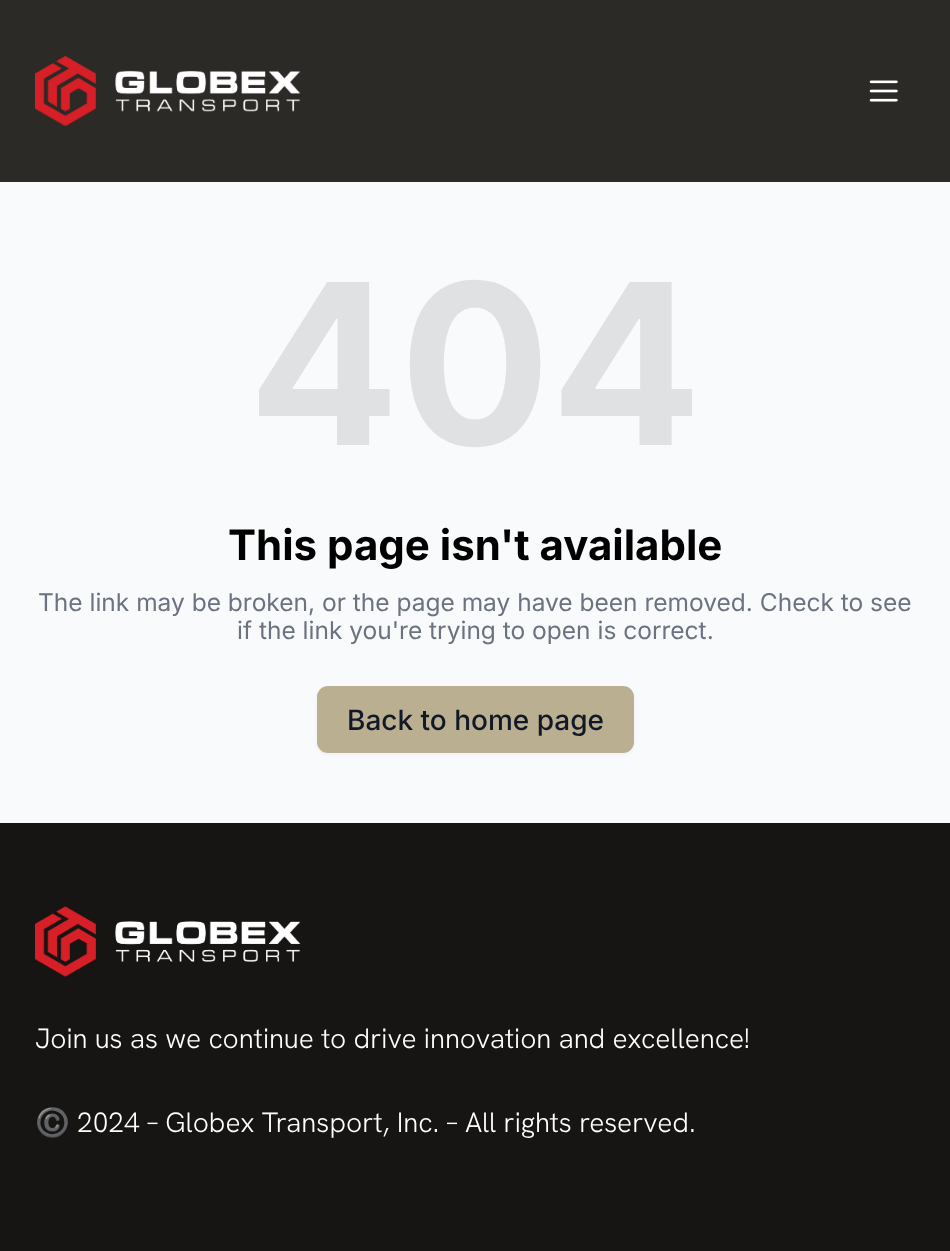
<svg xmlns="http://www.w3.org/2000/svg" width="950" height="1251">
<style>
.a{font:bold 224px Inter;fill:#e0e1e2}
.b{font:bold 42px Inter;fill:#000}
.c{font:24.5px Inter;fill:#6b7280}
.d{font:500 28px Inter;fill:#111827}
.e{font:300 28px Hanken Grotesk;fill:#fff}
.f{font:28px Noto Color Emoji;fill:#fff}
</style>
<rect width="100%" height="100%" fill="#f9fafb"/>
<path fill="#2c2a26" d="M0 0h950v182H0z"/>
<image href="1.png" x="35" y="56" width="266" height="70"/>
<image href="2.png" x="869" y="80" width="29" height="22"/>
<rect fill="#0000000d" filter="blur(2px)" x="317" y="688" width="317" height="66" rx="11"/>
<rect fill="#bbaf91" x="317" y="686" width="317" height="67" rx="11"/>
<path fill="#161513" d="M0 823h950v428H0z"/>
<image href="3.png" x="35" y="906" width="266" height="71"/>
<text class="a" x="248" y="445">404</text>
<text class="b" x="228" y="560">This page isn't available</text>
<text class="c" x="38" y="611">The link may be broken, or the page may have been removed. Check to see</text>
<text class="c" x="237" y="639">if the link you're trying to open is correct.</text>
<text class="d" x="347" y="730">Back to home page</text>
<text class="e" x="35" y="1048">Join us as we continue to drive innovation and excellence!</text>
<text class="f" x="35" y="1132">©️</text>
<text class="e" x="77" y="1132">2024 – Globex Transport, Inc. – All rights reserved.</text>
</svg>
